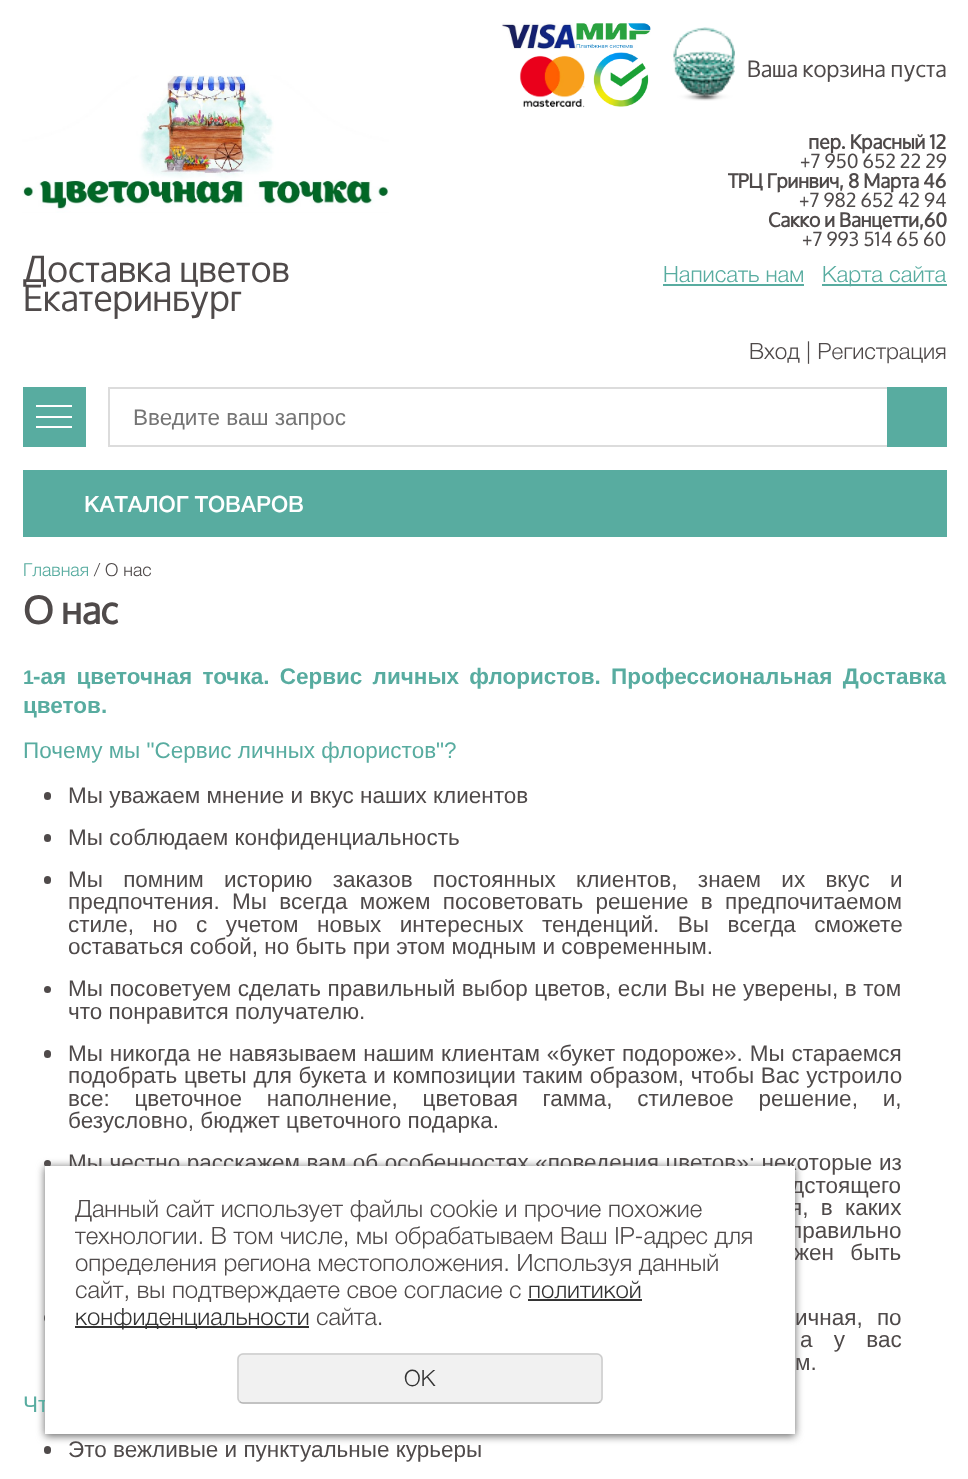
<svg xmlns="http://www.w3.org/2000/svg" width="968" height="1479">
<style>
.a{font:36px Oxygen;fill:#4f4a4a}
.b{font:22.5px Oxygen;fill:#4f4a4a}
.c{font:bold 19.5px Oxygen;fill:#4f4a4a}
.d{font:19.5px Oxygen;fill:#4f4a4a}
.e{font:300 22.5px 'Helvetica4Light';fill:#58aca0}
.f{font:300 22.5px 'Helvetica4Light';fill:#4f4a4a}
.g{font:22.5px Liberation Sans;fill:#757575}
.h{font:500 22.5px 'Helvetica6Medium';fill:#fff}
.i{font:300 18px 'Helvetica4Light';fill:#58aca0}
.j{font:300 18px 'Helvetica4Light';fill:#4f4a4a}
.k{font:bold 37.5px Oxygen;fill:#4f4a4a}
.l{font:bold 19.5px Liberation Sans;fill:#58aca0}
.m{font:bold 22.5px Liberation Sans;fill:#58aca0}
.n{font:22.5px Liberation Sans;fill:#58aca0}
.o{font:22.5px Liberation Sans;fill:#4f4a4a}
.p{font:300 24px 'Helvetica4Light';fill:#4f4a4a}
.q{font:300 24px 'Helvetica4Light';fill:#333}
.r{font:300 22.5px 'Helvetica4Light';fill:#333}
</style>
<rect width="100%" height="100%" fill="#fff"/>
<image href="1.png" x="22" y="75" width="367" height="138"/>
<image href="2.png" x="501" y="22" width="75" height="28"/>
<image href="3.png" x="576" y="23" width="75" height="25"/>
<image href="4.png" x="519" y="55" width="66" height="53"/>
<image href="5.png" x="593" y="52" width="56" height="55"/>
<image href="6.png" x="673" y="27" width="62" height="74"/>
<path fill="#58aca0" d="M663 284h141v2H663z"/>
<path fill="#58aca0" d="M822 284h125v2H822z"/>
<path fill="#58aca0" d="M23 387h63v60H23z"/>
<path fill="#fff" d="M36 405h36v2H36z"/>
<path fill="#fff" d="M36 416h36v2H36z"/>
<path fill="#fff" d="M36 426h36v2H36z"/>
<path fill="none" stroke="#dcdcdc" stroke-width="2" d="M109 388h837v58H109z"/>
<path fill="#58aca0" d="M887 387h60v60H887z"/>
<path fill="#58aca0" d="M23 470h924v67H23z"/>
<rect fill="#4f4a4a" x="44" y="792" width="7" height="8" rx="3.5"/>
<rect fill="#4f4a4a" x="44" y="834" width="7" height="8" rx="3.5"/>
<rect fill="#4f4a4a" x="44" y="876" width="7" height="8" rx="3.5"/>
<circle fill="#4f4a4a" cx="47.5" cy="989.5" r="3.5"/>
<rect fill="#4f4a4a" x="44" y="1050" width="7" height="8" rx="3.5"/>
<circle fill="#4f4a4a" cx="47.5" cy="1163.5" r="3.5"/>
<rect fill="#4f4a4a" x="44" y="1314" width="7" height="8" rx="3.5"/>
<rect fill="#4f4a4a" x="44" y="1446" width="7" height="8" rx="3.5"/>
<path fill="#666" filter="blur(4px)" d="M45 1167h750v269H45z"/>
<text class="a" x="23" y="282">Доставка цветов</text>
<text class="a" x="23" y="311">Екатеринбург</text>
<text class="b" x="747" y="77">Ваша корзина пуста</text>
<text class="c" x="808" y="149">пер. Красный 12</text>
<text class="d" x="800" y="168">+7 950 652 22 29</text>
<text class="c" x="728" y="188">ТРЦ Гринвич, 8 Марта 46</text>
<text class="d" x="799" y="207">+7 982 652 42 94</text>
<text class="c" x="768" y="227">Сакко и Ванцетти,60</text>
<text class="d" x="802" y="246">+7 993 514 65 60</text>
<text class="e" x="663" y="282">Написать нам</text>
<text class="e" x="822" y="282">Карта сайта</text>
<text class="f" x="749" y="359">Вход | Регистрация</text>
<text class="g" x="133" y="425">Введите ваш запрос</text>
<text class="h" x="84" y="512">КАТАЛОГ ТОВАРОВ</text>
<text class="i" x="23" y="576">Главная</text>
<text class="j" x="94" y="576">/ О нас</text>
<text class="k" x="23" y="624">О нас</text>
<text class="l" x="23" y="684">1</text>
<text class="m" x="33" y="684" word-spacing="4">-ая цветочная точка. Сервис личных флористов. Профессиональная Доставка</text>
<text class="m" x="23" y="713">цветов.</text>
<text class="n" x="23" y="758">Почему мы "Сервис личных флористов"?</text>
<text class="o" x="68" y="803">Мы уважаем мнение и вкус наших клиентов</text>
<text class="o" x="68" y="845">Мы соблюдаем конфиденциальность</text>
<text class="o" x="68" y="887" word-spacing="14">Мы помним историю заказов постоянных клиентов, знаем их вкус и</text>
<text class="o" x="68" y="909" word-spacing="6">предпочтения. Мы всегда можем посоветовать решение в предпочитаемом</text>
<text class="o" x="68" y="932" word-spacing="12.25">стиле, но с учетом новых интересных тенденций. Вы всегда сможете</text>
<text class="o" x="68" y="954">оставаться собой, но быть при этом модным и современным.</text>
<text class="o" x="68" y="996" word-spacing="0.25">Мы посоветуем сделать правильный выбор цветов, если Вы не уверены, в том</text>
<text class="o" x="68" y="1019">что понравится получателю.</text>
<text class="o" x="68" y="1061" word-spacing="0.6">Мы никогда не навязываем нашим клиентам «букет подороже». Мы стараемся</text>
<text class="o" x="68" y="1083" word-spacing="0.4">подобрать цветы для букета и композиции таким образом, чтобы Вас устроило</text>
<text class="o" x="68" y="1106" word-spacing="18.5">все: цветочное наполнение, цветовая гамма, стилевое решение, и,</text>
<text class="o" x="68" y="1128">безусловно, бюджет цветочного подарка.</text>
<text class="o" x="68" y="1170" word-spacing="0.25">Мы честно расскажем вам об особенностях «поведения цветов»: некоторые из</text>
<text class="o" x="791" y="1193" word-spacing="7">дстоящего</text>
<text class="o" x="790" y="1215" word-spacing="6">я, в каких</text>
<text class="o" x="790" y="1238" word-spacing="6">правильно</text>
<text class="o" x="794" y="1260" word-spacing="10">жен быть</text>
<text class="o" x="795" y="1325" word-spacing="8">ичная, по</text>
<text class="o" x="800" y="1347" word-spacing="15">а у вас</text>
<text class="o" x="795" y="1370">м.</text>
<text class="n" x="23" y="1412">Чт</text>
<text class="o" x="68" y="1457">Это вежливые и пунктуальные курьеры</text>
<path fill="#fff" d="M45 1166h750v268H45z"/>
<text class="p" x="75" y="1217">Данный сайт использует файлы cookie и прочие похожие</text>
<text class="p" x="75" y="1244">технологии. В том числе, мы обрабатываем Ваш IP-адрес для</text>
<text class="p" x="75" y="1271">определения региона местоположения. Используя данный</text>
<text class="p" x="75" y="1298">сайт, вы подтверждаете свое согласие с</text>
<text class="q" x="528" y="1298">политикой</text>
<path fill="#333" d="M528 1299h114v2H528z"/>
<path fill="#333" d="M75 1326h234v2H75z"/>
<text class="q" x="75" y="1325">конфиденциальности</text>
<text class="p" x="316" y="1325">сайта.</text>
<rect fill="#f1f1f1" x="237" y="1353" width="366" height="51" rx="6"/>
<path fill="none" stroke="#b3b3b3" stroke-width="1.5" d="M600.5 1401.5c-1 1-2 1.5-3.5 1.5h-354c-1.5 0-2.5-.5-3.5-1.5"/>
<path fill="none" stroke="#ccc" stroke-width="1.5" d="M239.5 1401.5c-1-1-1.5-2-1.5-3.5v-39c0-1.5 .5-2.5 1.5-3.5c1-1 2-1.5 3.5-1.5h354c1.5 0 2.5 .5 3.5 1.5c1 1 1.5 2 1.5 3.5v39c0 1.5-.5 2.5-1.5 3.5"/>
<text class="r" x="404" y="1386">OK</text>
</svg>
